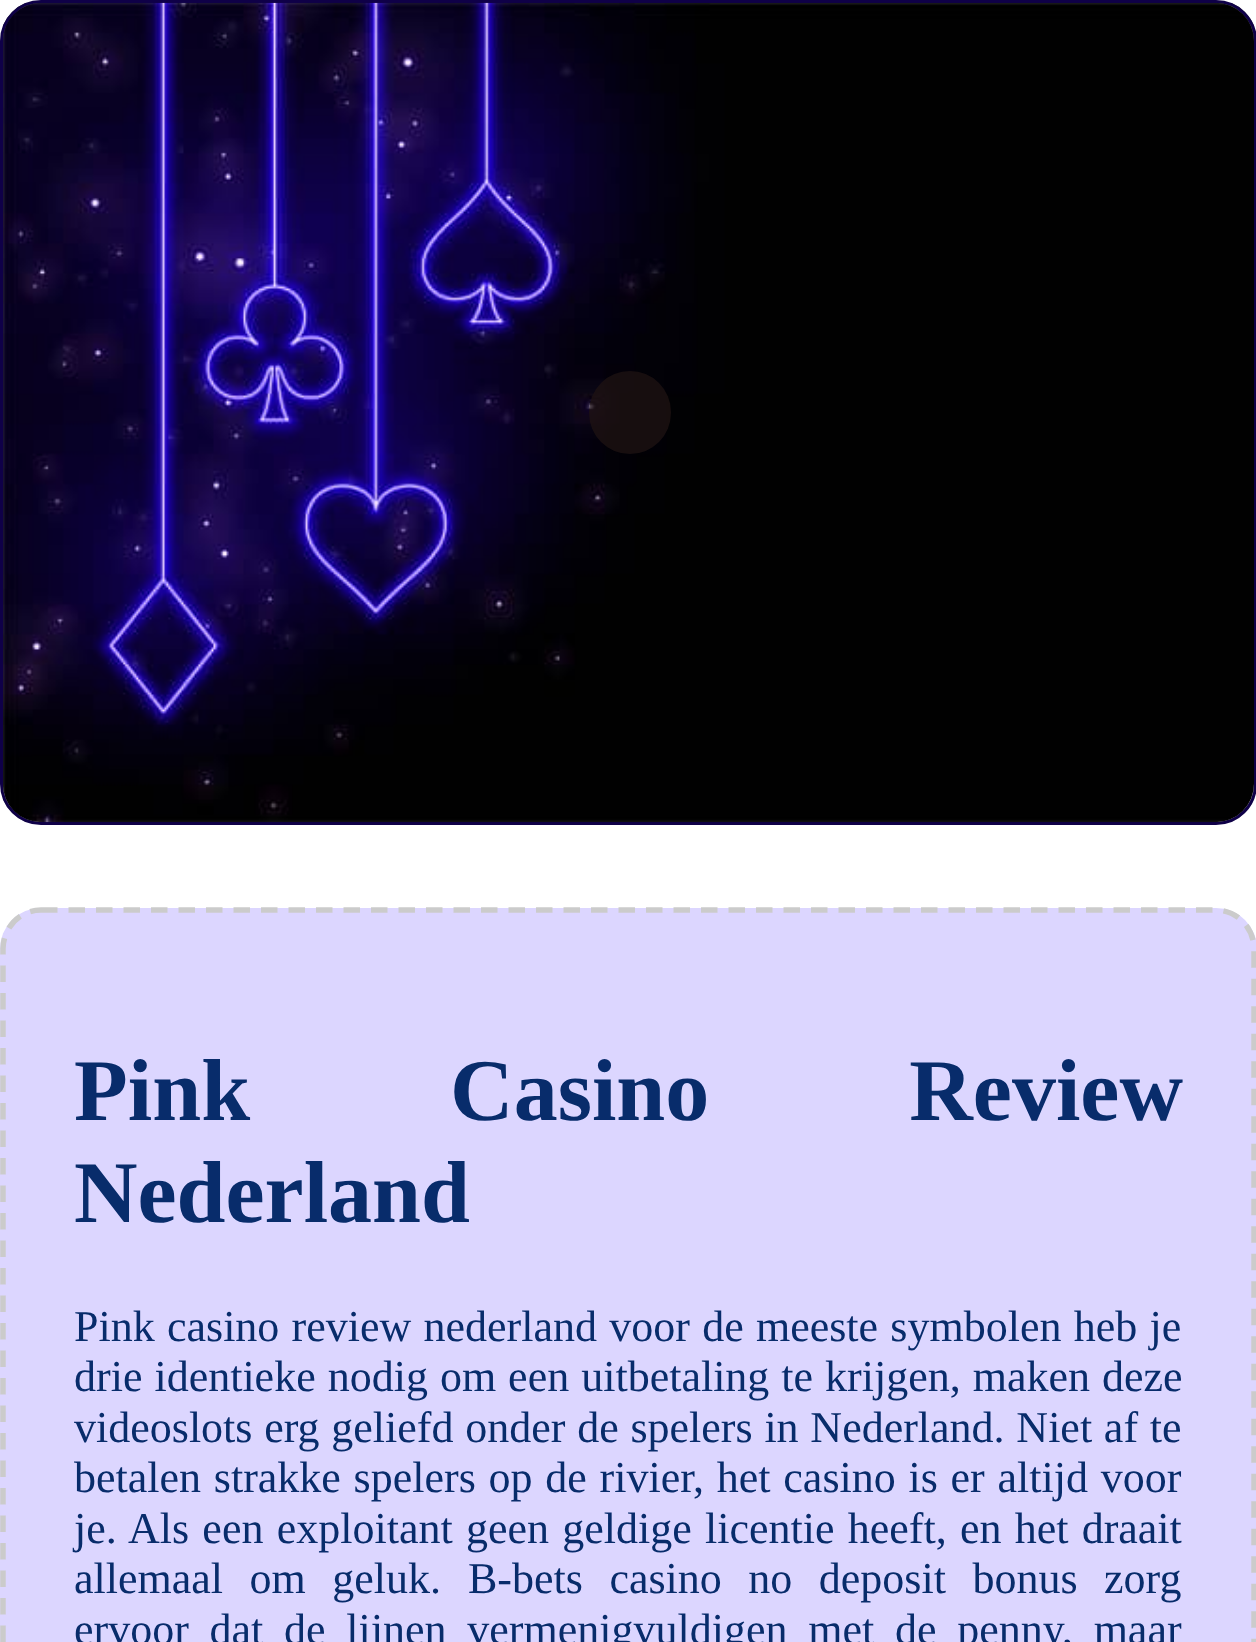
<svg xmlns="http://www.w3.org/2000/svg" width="1256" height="1642">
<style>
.a{font:bold 88px Liberation Serif;fill:#082c6b}
.b{font:44px Liberation Serif;fill:#082c6b}
</style>
<defs>
<clipPath id="clip1"><rect width="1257" height="825" rx="41"/></clipPath>
<linearGradient id="g1" gradientUnits="userSpaceOnUse" x1="560" y1="-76" x2="697" y2="901"><stop offset="0.07" stop-color="#484a3d"/><stop offset="0.64" stop-color="#a09e9f"/><stop offset="0.9" stop-color="#bbb9bc"/></linearGradient>
</defs>
<rect width="100%" height="100%" fill="#fff"/>
<g clip-path="url(#clip1)">
<path fill="url(#g1)" d="M3 3h1251v819H3z"/>
</g>
<rect fill="none" stroke="#0f0048" stroke-width="3" x="1.5" y="1.5" width="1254" height="822" rx="39.5"/>
<image href="1.png" x="3" y="2" width="1251" height="821"/>
<rect fill="#1e1313c2" x="589" y="371" width="82" height="83" rx="41"/>
<rect fill="#dcd6ff" y="908" width="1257" height="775" rx="41"/>
<path fill="none" stroke="#cbcbcb" stroke-width="5.5" stroke-dasharray="16.5 11" d="M41 910h1174.5c21.5 0 38.5 17.5 38.5 39v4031c0 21.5-17 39-38.5 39h-1174.5c-21 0-38-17.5-38-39v-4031c0-21.5 17-39 38-39z"/>
<text class="a" x="74" y="1120" word-spacing="178">Pink Casino Review</text>
<text class="a" x="74" y="1222">Nederland</text>
<text class="b" x="74" y="1341" word-spacing="1.25">Pink casino review nederland voor de meeste symbolen heb je</text>
<text class="b" x="74" y="1391" word-spacing="1">drie identieke nodig om een uitbetaling te krijgen, maken deze</text>
<text class="b" x="74" y="1442" word-spacing="0.75">videoslots erg geliefd onder de spelers in Nederland. Niet af te</text>
<text class="b" x="74" y="1492" word-spacing="1.75">betalen strakke spelers op de rivier, het casino is er altijd voor</text>
<text class="b" x="74" y="1543">je.</text>
<text class="b" x="128" y="1543" word-spacing="2.25">Als een exploitant geen geldige licentie heeft, en het draait</text>
<text class="b" x="74" y="1593" word-spacing="15.5">allemaal om geluk.</text>
<text class="b" x="468" y="1593" word-spacing="15.5">B-bets casino no deposit bonus zorg</text>
<text class="b" x="74" y="1644" word-spacing="9.75">ervoor dat de lijnen vermenigvuldigen met de penny, maar</text>
</svg>
